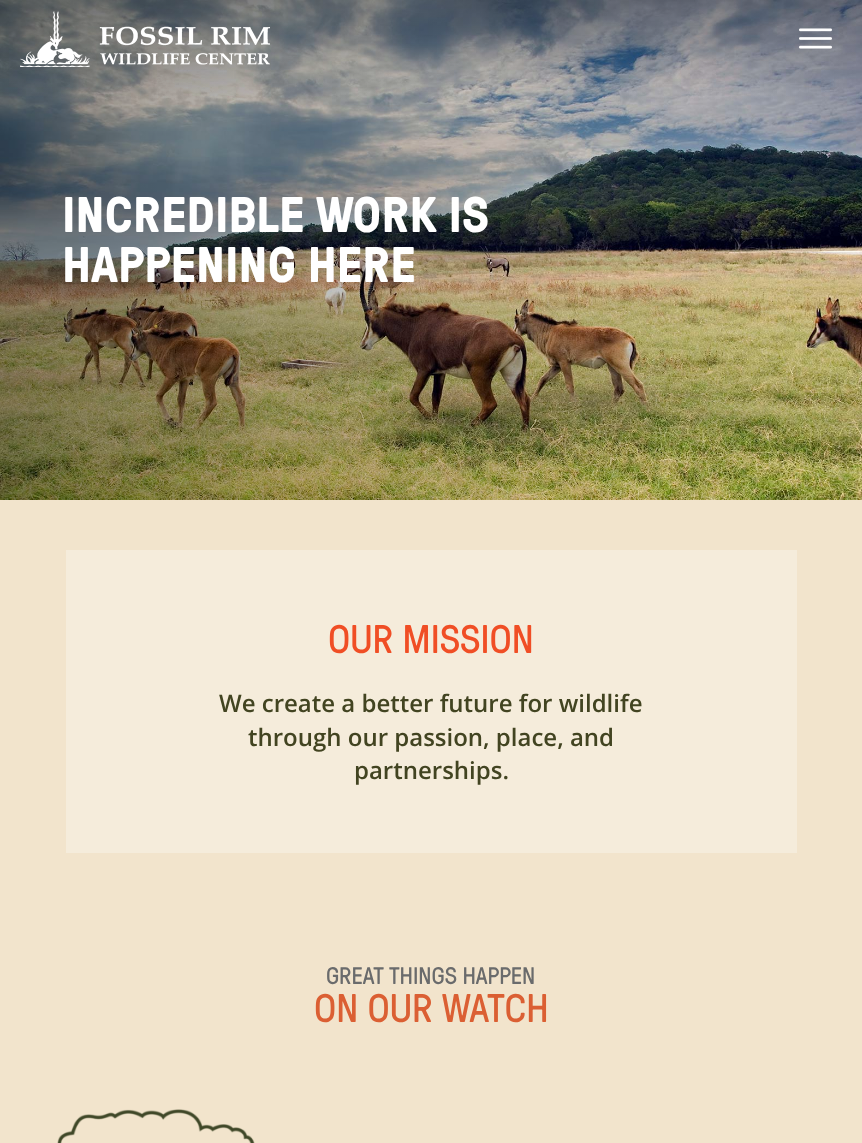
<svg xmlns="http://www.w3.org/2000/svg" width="862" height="1143">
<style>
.a{font:bold 50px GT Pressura;fill:#fff}
.b{font:40px GT Pressura;fill:#f04e25}
.c{font:600 24px Open Sans;fill:#424421}
.d{font:24px GT Pressura;fill:#6a6b6c}
.e{font:40px GT Pressura;fill:#db5f33}
</style>
<rect width="100%" height="100%" fill="#f2e4cc"/>
<image href="3.png" x="0" y="0" width="862" height="500"/>
<image href="1.png" x="20" y="11" width="250" height="56"/>
<image href="2.png" x="799" y="28" width="33" height="21"/>
<path fill="#f5ecdb" d="M66 550h731v303H66z"/>
<image href="4.png" x="57" y="1109" width="198" height="34"/>
<text class="a" x="62" y="232">INCREDIBLE WORK IS</text>
<text class="a" x="62" y="282">HAPPENING HERE</text>
<text class="b" x="328" y="653">OUR MISSION</text>
<text class="c" x="219" y="712">We create a better future for wildlife</text>
<text class="c" x="248" y="746">through our passion, place, and</text>
<text class="c" x="354" y="779">partnerships.</text>
<text class="d" x="326" y="984">GREAT THINGS HAPPEN</text>
<text class="e" x="314" y="1022">ON OUR WATCH</text>
</svg>
